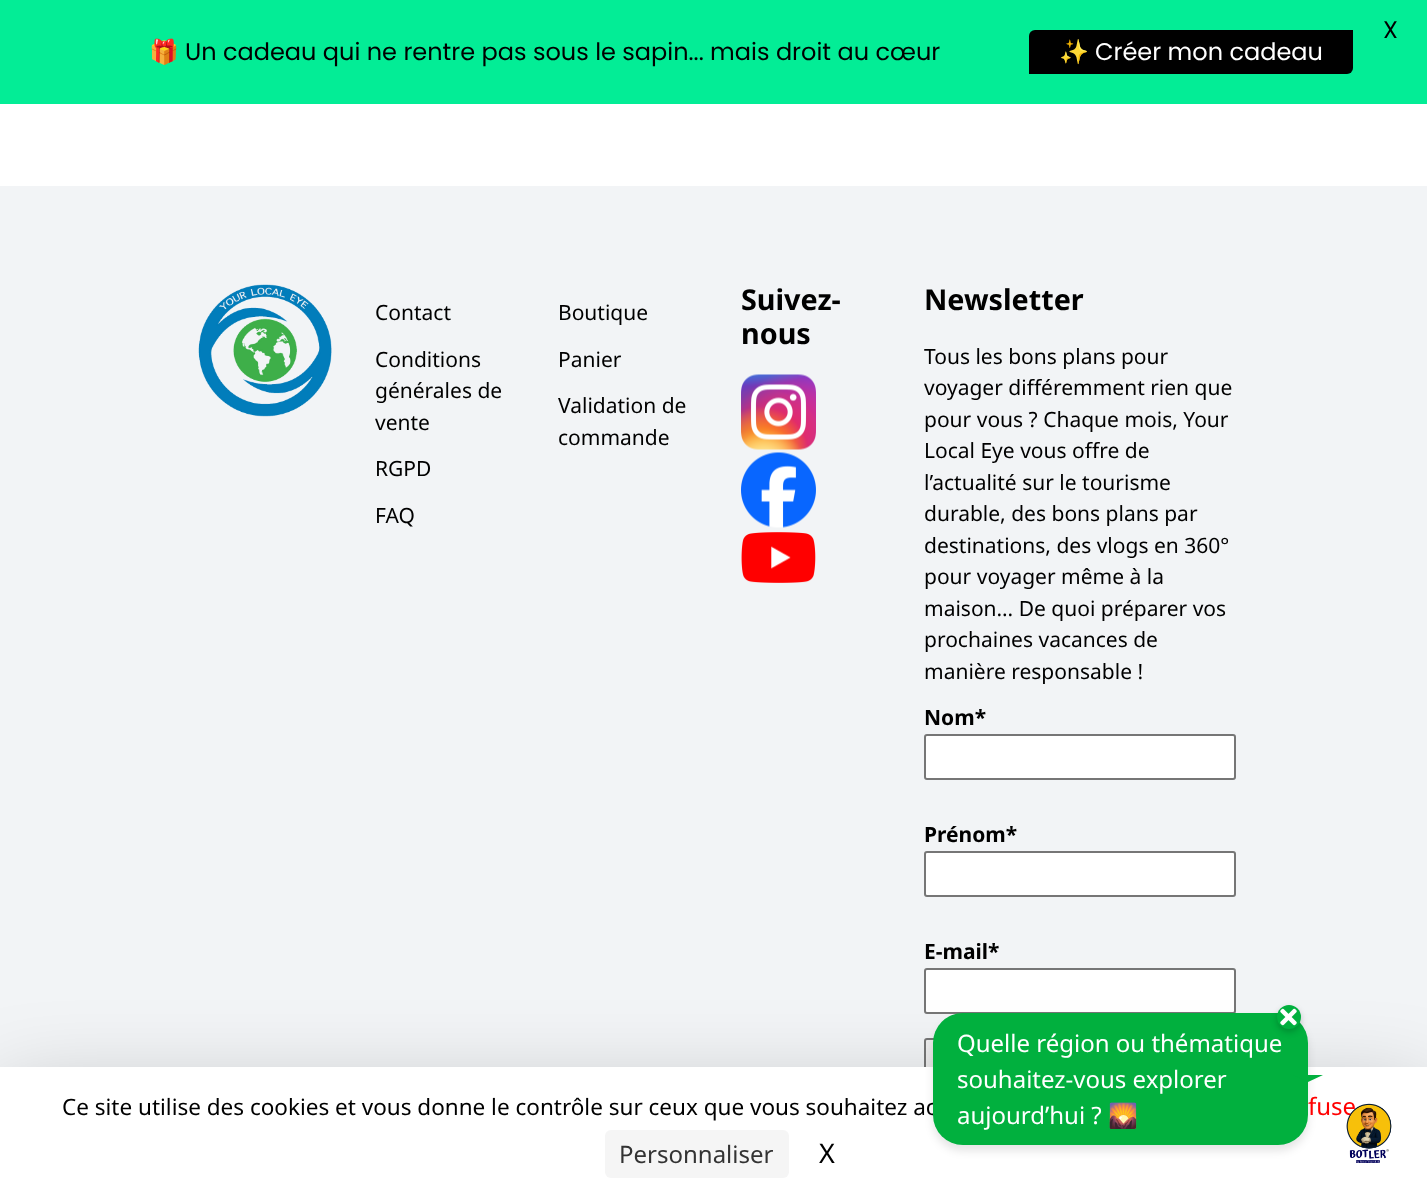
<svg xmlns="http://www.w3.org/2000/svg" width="1427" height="1192">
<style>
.a{font:24px Poppins;fill:#000}
.b{font:24px Noto Color Emoji;fill:#000}
.c{font:24px Noto Color Emoji;fill:#fff}
.d{font:24px Poppins;fill:#fff}
.e{font:21px Noto Sans;fill:#000}
.f{font:bold 28.75px Noto Sans;fill:#000}
.g{font:bold 21px Noto Sans;fill:#000}
.h{font:22.5px Noto Sans;fill:#000}
.i{font:24px Noto Sans;fill:#fff}
.j{font:24px Noto Sans;fill:#f00}
.k{font:24px Noto Sans;fill:#333}
.l{font:27px Noto Sans;fill:#000}
</style>
<rect width="100%" height="100%" fill="#fff"/>
<path fill="#03ed96" d="M0 0h1427v104H0z"/>
<rect fill="#000" x="1029" y="30" width="324" height="44" rx="6"/>
<path fill="#000" d="M1350 30h3v6H1350z"/>
<path fill="#000" d="M1347 30h6v1H1347z"/>
<path fill="#000" d="M1029 68h3v6H1029z"/>
<path fill="#000" d="M1029 73h6v1H1029z"/>
<path fill="#f2f4f6" d="M0 186h1427v881H0z"/>
<image href="1.png" x="198" y="284" width="134" height="133"/>
<image href="2.png" x="741" y="374" width="75" height="76"/>
<image href="3.png" x="741" y="452" width="75" height="76"/>
<image href="4.png" x="741" y="532" width="75" height="51"/>
<rect fill="#fff" stroke="#767676" stroke-width="2" x="925" y="735" width="310" height="44" rx="2"/>
<rect fill="#fff" stroke="#767676" stroke-width="2" x="925" y="852" width="310" height="44" rx="2"/>
<rect fill="#fff" stroke="#767676" stroke-width="2" x="925" y="969" width="310" height="44" rx="2"/>
<rect fill="#efefef" stroke="#767676" stroke-width="2" x="925" y="1039" width="111" height="39" rx="2"/>
<path fill="#00000040" filter="blur(45px)" d="M0 1097h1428v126H0z"/>
<path fill="#fff" d="M0 1067h1427v125H0z"/>
<rect fill="#0000001a" filter="blur(4.5px)" x="933" y="1019" width="375" height="132" rx="30"/>
<rect fill="#f5f5f5" x="605" y="1130" width="184" height="48" rx="6"/>
<text class="a" x="1383" y="38">X</text>
<text class="b" x="149" y="60">🎁</text>
<text class="a" x="185" y="60">Un cadeau qui ne rentre pas sous le sapin... mais droit au cœur</text>
<text class="c" x="1059" y="60">✨</text>
<text class="d" x="1095" y="60">Créer mon cadeau</text>
<text class="e" x="375" y="320">Contact</text>
<text class="e" x="375" y="367">Conditions</text>
<text class="e" x="375" y="398">générales de</text>
<text class="e" x="375" y="430">vente</text>
<text class="e" x="375" y="476">RGPD</text>
<text class="e" x="375" y="523">FAQ</text>
<text class="e" x="558" y="320">Boutique</text>
<text class="e" x="558" y="367">Panier</text>
<text class="e" x="558" y="413">Validation de</text>
<text class="e" x="558" y="445">commande</text>
<text class="f" x="741" y="310">Suivez-</text>
<text class="f" x="741" y="344">nous</text>
<text class="f" x="924" y="310">Newsletter</text>
<text class="e" x="924" y="364">Tous les bons plans pour</text>
<text class="e" x="924" y="395">voyager différemment rien que</text>
<text class="e" x="924" y="427">pour vous ? Chaque mois, Your</text>
<text class="e" x="924" y="458">Local Eye vous offre de</text>
<text class="e" x="924" y="490">l’actualité sur le tourisme</text>
<text class="e" x="924" y="521">durable, des bons plans par</text>
<text class="e" x="924" y="553">destinations, des vlogs en 360°</text>
<text class="e" x="924" y="584">pour voyager même à la</text>
<text class="e" x="924" y="616">maison… De quoi préparer vos</text>
<text class="e" x="924" y="647">prochaines vacances de</text>
<text class="e" x="924" y="679">manière responsable !</text>
<text class="g" x="924" y="725">Nom*</text>
<text class="g" x="924" y="842">Prénom*</text>
<text class="g" x="924" y="959">E-mail*</text>
<text class="h" x="62" y="1115">Ce site utilise des cookies et vous donne le contrôle sur ceux que vous souhaitez ac</text>
<rect fill="#01b03e" x="933" y="1013" width="375" height="132" rx="30"/>
<path fill="#01b03e" d="M1293 1075h30l-15 7z"/>
<rect fill="#00000033" filter="blur(3px)" x="1277" y="1008" width="24" height="24" rx="12"/>
<circle fill="#01b03e" cx="1289" cy="1017" r="12"/>
<image href="5.png" x="1280" y="1008" width="17" height="18"/>
<text class="c" x="1108" y="1124">🌄</text>
<text class="i" x="957" y="1124">aujourd’hui ?</text>
<text class="i" x="957" y="1088">souhaitez-vous explorer</text>
<text class="i" x="957" y="1052">Quelle région ou thématique</text>
<text class="j" x="1308" y="1115">fuse</text>
<image href="6.png" x="1346" y="1103" width="46" height="60"/>
<text class="k" x="619" y="1163">Personnaliser</text>
<text class="l" x="819" y="1163">X</text>
</svg>
